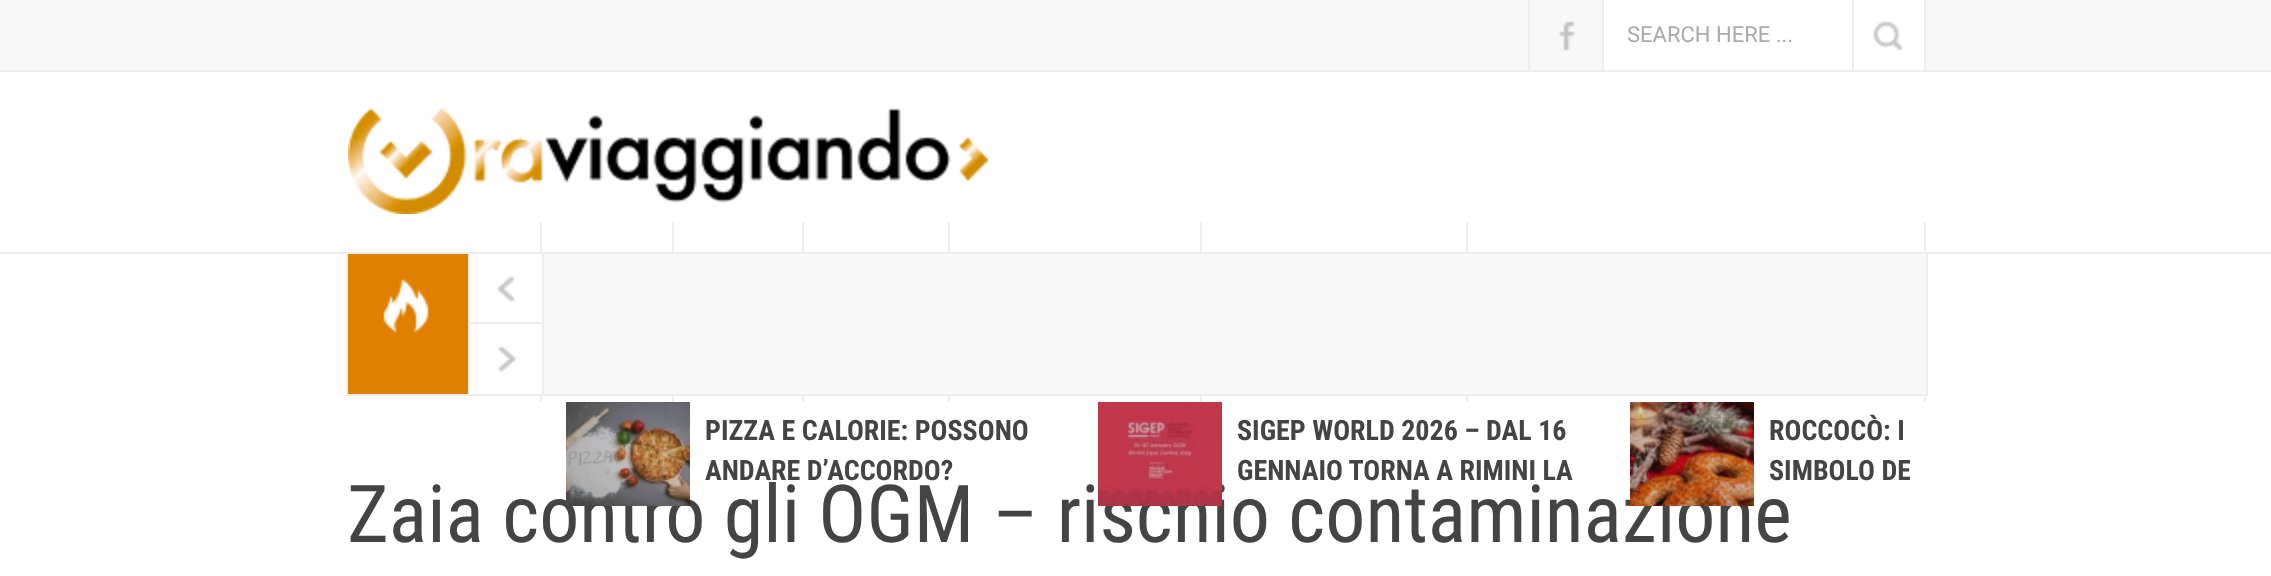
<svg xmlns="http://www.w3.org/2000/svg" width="2271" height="576">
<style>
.a{font:22px Roboto;fill:#aaa}
.b{font:bold 28px Roboto Condensed;fill:#444}
.c{font:80px Roboto Condensed;fill:#444}
</style>
<defs>
<clipPath id="clip1"><path d="M566 402h1344v104H566z"/></clipPath>
</defs>
<rect width="100%" height="100%" fill="#fff"/>
<path fill="#f8f8f8" d="M0 0h2271v70H0z"/>
<path fill="#eee" d="M0 70h2271v2H0z"/>
<path fill="#eee" d="M1528 0h2v70H1528z"/>
<image href="1.png" x="1559" y="21" width="16" height="30"/>
<path fill="#fff" d="M1604 0h320v70H1604z"/>
<path fill="#eee" d="M1924 0h2v70H1924z"/>
<path fill="#eee" d="M1602 0h2v70H1602z"/>
<path fill="#eee" d="M1852 0h2v70H1852z"/>
<image href="2.png" x="1873" y="21" width="30" height="30"/>
<path fill="#eee" d="M0 252h2271v2H0z"/>
<image href="3.png" x="348" y="108" width="640" height="106"/>
<path fill="#eee" d="M540 222h2v180H540z"/>
<path fill="#eee" d="M672 222h2v180H672z"/>
<path fill="#eee" d="M802 222h2v180H802z"/>
<path fill="#eee" d="M948 222h2v180H948z"/>
<path fill="#eee" d="M1200 222h2v180H1200z"/>
<path fill="#eee" d="M1924 222h2v180H1924z"/>
<path fill="#eee" d="M1466 222h2v180H1466z"/>
<path fill="#f8f8f8" d="M544 254h1382v140H544z"/>
<path fill="#eee" d="M1926 254h2v142H1926z"/>
<path fill="#eee" d="M346 394h1582v2H346z"/>
<path fill="#eee" d="M346 254h2v142H346z"/>
<path fill="#e07f00" d="M348 254h120v140H348z"/>
<image href="4.png" x="383" y="279" width="46" height="54"/>
<path fill="#fff" d="M540 254h2v68H540z"/>
<image href="5.png" x="497" y="275" width="18" height="28"/>
<path fill="#eee" d="M542 252h2v72H542z"/>
<path fill="#eee" d="M468 252h2v72H468z"/>
<path fill="#fff" d="M540 324h2v70H540z"/>
<image href="6.png" x="498" y="345" width="18" height="28"/>
<path fill="#eee" d="M468 322h76v2H468z"/>
<path fill="#eee" d="M542 322h2v72H542z"/>
<path fill="#eee" d="M468 322h2v72H468z"/>
<text class="a" x="1627" y="42">SEARCH HERE ...</text>
<text class="b" x="705" y="440">PIZZA E CALORIE: POSSONO</text>
<text class="b" x="705" y="480">ANDARE D’ACCORDO?</text>
<text class="b" x="1237" y="440">SIGEP WORLD 2026 – DAL 16</text>
<text class="b" x="1237" y="480">GENNAIO TORNA A RIMINI LA</text>
<text class="b" x="1769" y="440">ROCCOCÒ: I</text>
<g clip-path="url(#clip1)">
<text class="b" x="1769" y="480">SIMBOLO DE</text>
</g>
<text class="c" x="347" y="542">Zaia contro gli OGM – rischio contaminazione</text>
<image href="9.png" x="1630" y="402" width="124" height="104"/>
<image href="8.png" x="1098" y="402" width="124" height="104"/>
<image href="7.png" x="566" y="402" width="124" height="104"/>
</svg>
